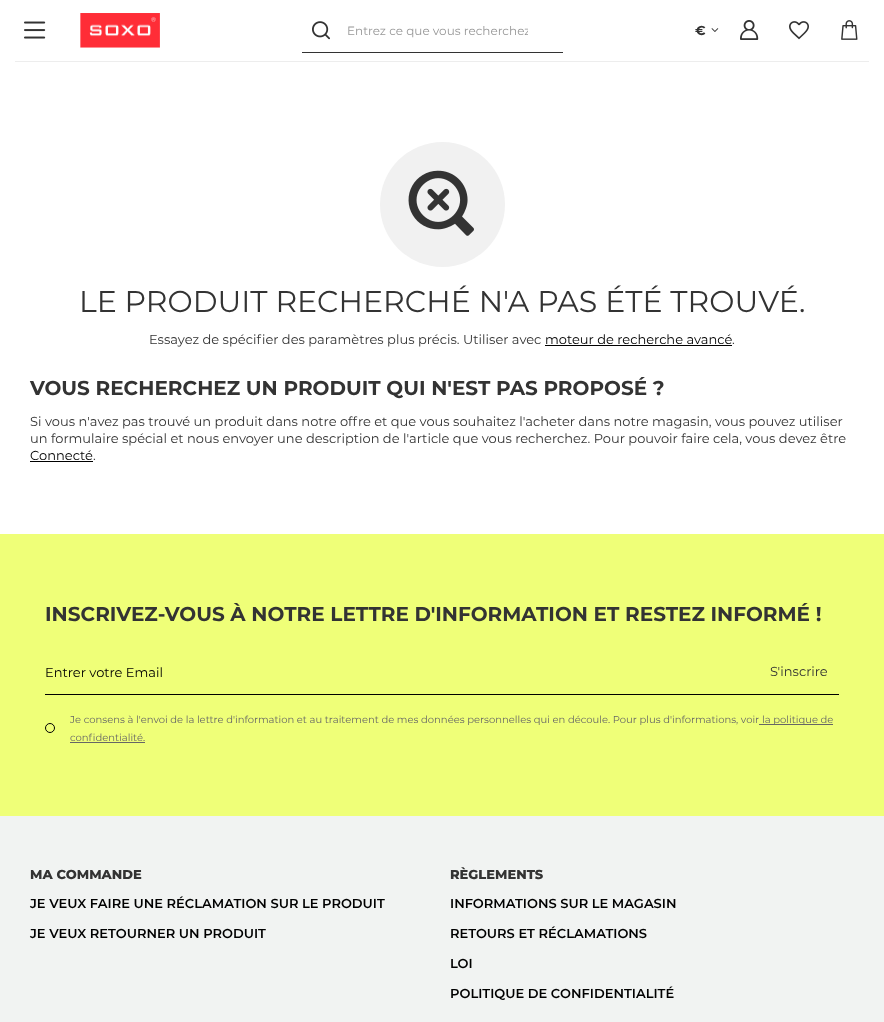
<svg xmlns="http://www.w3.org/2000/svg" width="884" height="1022">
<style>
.a{font:12px Montserrat;fill:#989898}
.b{font:bold 13px Montserrat;fill:#333}
.c{font:30px Montserrat;fill:#333}
.d{font:13px Montserrat;fill:#333}
.e{font:13px Montserrat;fill:#000}
.f{font:bold 20px Montserrat;fill:#333}
.g{font:10px Montserrat;fill:#666}
.h{font:800 13px Montserrat;fill:#333}
.i{font:600 13px Montserrat;fill:#000}
</style>
<defs>
<clipPath id="clip1"><path d="M347 23h181v15H347z"/></clipPath>
</defs>
<rect width="100%" height="100%" fill="#fff"/>
<path fill="#ededed" d="M15 61h854v1H15z"/>
<image href="1.png" x="24" y="21" width="22" height="18"/>
<image href="2.png" x="80" y="13" width="80" height="35"/>
<image href="3.png" x="312" y="21" width="18" height="19"/>
<path fill="#333" d="M302 52h261v1H302z"/>
<image href="4.png" x="711" y="28" width="8" height="4"/>
<image href="5.png" x="740" y="20" width="19" height="20"/>
<image href="6.png" x="789" y="21" width="20" height="19"/>
<image href="7.png" x="841" y="20" width="17" height="20"/>
<circle fill="#f1f1f1" cx="442.5" cy="204.5" r="62.5"/>
<image href="8.png" x="408" y="170" width="66" height="66"/>
<path fill="#000" d="M545 345h187v1H545z"/>
<path fill="#000" d="M30 461h63v1H30z"/>
<path fill="#efff78" d="M0 534h884v282H0z"/>
<path fill="#000" d="M45 694h794v1H45z"/>
<path fill="#666" d="M759 724h74v1H759z"/>
<circle fill="none" stroke="#000" cx="50" cy="728" r="4.5"/>
<path fill="#666" d="M70 742h75v1H70z"/>
<path fill="#f1f3f2" d="M0 816h884v206H0z"/>
<g clip-path="url(#clip1)">
<text class="a" x="347" y="35">Entrez ce que vous recherchez</text>
</g>
<text class="b" x="695" y="35">€</text>
<text class="c" x="79" y="312">LE PRODUIT RECHERCHÉ N'A PAS ÉTÉ TROUVÉ.</text>
<text class="d" x="149" y="344">Essayez de spécifier des paramètres plus précis. Utiliser avec</text>
<text class="e" x="545" y="344">moteur de recherche avancé</text>
<text class="d" x="732" y="344">.</text>
<text class="f" x="30" y="395">VOUS RECHERCHEZ UN PRODUIT QUI N'EST PAS PROPOSÉ ?</text>
<text class="d" x="30" y="426">Si vous n'avez pas trouvé un produit dans notre offre et que vous souhaitez l'acheter dans notre magasin, vous pouvez utiliser</text>
<text class="d" x="30" y="443">un formulaire spécial et nous envoyer une description de l'article que vous recherchez. Pour pouvoir faire cela, vous devez être</text>
<text class="e" x="30" y="460">Connecté</text>
<text class="d" x="93" y="460">.</text>
<text class="f" x="45" y="621">INSCRIVEZ-VOUS À NOTRE LETTRE D'INFORMATION ET RESTEZ INFORMÉ !</text>
<text class="e" x="45" y="677">Entrer votre Email</text>
<text class="d" x="770" y="676">S'inscrire</text>
<text class="g" x="70" y="723">Je consens à l'envoi de la lettre d'information et au traitement de mes données personnelles qui en découle. Pour plus d'informations, voir</text>
<text class="g" x="762" y="723">la politique de</text>
<text class="g" x="70" y="741">confidentialité.</text>
<text class="h" x="30" y="879">MA COMMANDE</text>
<text class="i" x="30" y="908">JE VEUX FAIRE UNE RÉCLAMATION SUR LE PRODUIT</text>
<text class="i" x="30" y="938">JE VEUX RETOURNER UN PRODUIT</text>
<text class="h" x="450" y="879">RÈGLEMENTS</text>
<text class="i" x="450" y="908">INFORMATIONS SUR LE MAGASIN</text>
<text class="i" x="450" y="938">RETOURS ET RÉCLAMATIONS</text>
<text class="i" x="450" y="968">LOI</text>
<text class="i" x="450" y="998">POLITIQUE DE CONFIDENTIALITÉ</text>
</svg>
